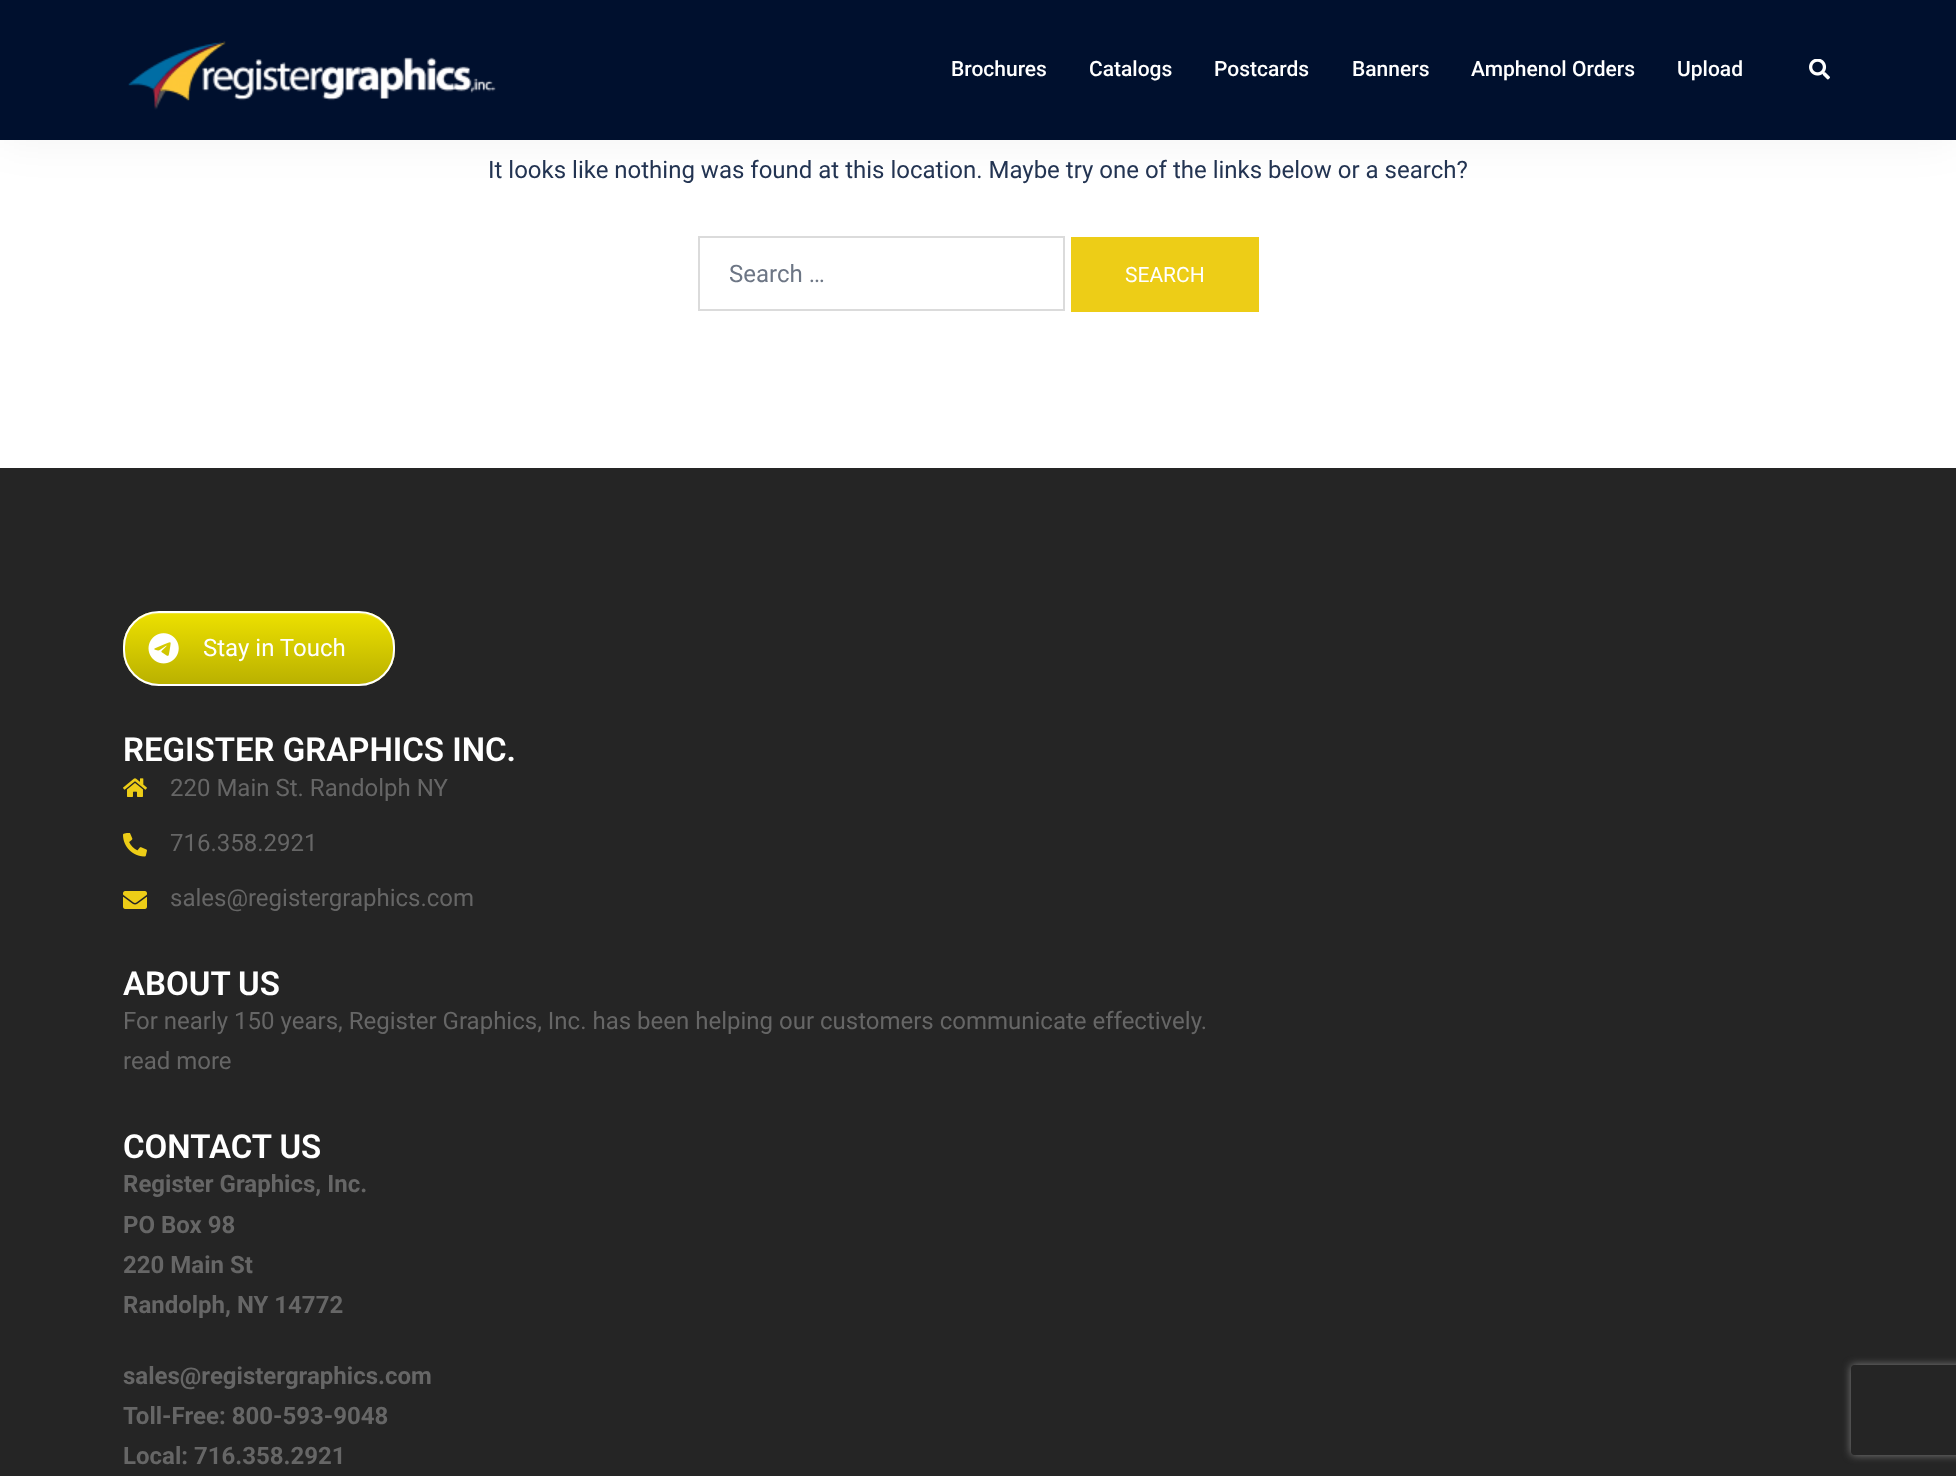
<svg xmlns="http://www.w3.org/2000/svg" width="1956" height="1476">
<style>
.a{font:500 21px Roboto;fill:#fff}
.b{font:24px Roboto;fill:#233452}
.c{font:24px Roboto;fill:#6d7685}
.d{font:21px Roboto;fill:#fff}
.e{font:24px Roboto;fill:#fff}
.f{font:600 33px Roboto;fill:#fff}
.g{font:24px Roboto;fill:#666}
.h{font:bold 24px Roboto;fill:#666}
</style>
<defs>
<clipPath id="clip1"><rect x="123" y="611" width="272" height="75" rx="36"/></clipPath>
<linearGradient id="g1" gradientUnits="userSpaceOnUse" x1="125" y1="684" x2="125" y2="612"><stop offset="0" stop-color="#bab100"/><stop offset="1" stop-color="#ede100"/></linearGradient>
<clipPath id="clip2"><path d="M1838 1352h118v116h-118zm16 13h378c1.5 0 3 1.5 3 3v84c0 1.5-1.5 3-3 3h-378c-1.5 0-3-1.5-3-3v-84c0-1.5 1.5-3 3-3z" clip-rule="evenodd"/></clipPath>
</defs>
<rect width="100%" height="100%" fill="#fff"/>
<path fill="#0000000d" filter="blur(22.5px)" d="M0 0h1956v140H0z"/>
<path fill="#00102e" d="M0 0h1956v140H0z"/>
<image href="1.png" x="128" y="41" width="368" height="69"/>
<image href="2.png" x="1809" y="59" width="21" height="21"/>
<path fill="none" stroke="#dbdbdb" stroke-width="2" d="M699 237h365v73H699z"/>
<path fill="#edcd17" d="M1071 237h188v75H1071z"/>
<path fill="#252525" d="M0 468h1956v1008H0z"/>
<g clip-path="url(#clip1)">
<path fill="url(#g1)" d="M123 612h272v72H123z"/>
</g>
<path fill="#ffffff33" d="M159 614h199c20 0 35 15 35 34v-1c0-19-16-35-35-35h-198c-13 0-24 7-30 17c6-9 17-15 29-15z"/>
<rect fill="none" stroke="#fff" stroke-width="2" x="124" y="612" width="270" height="73" rx="35"/>
<image href="3.png" x="148" y="633" width="31" height="31"/>
<image href="4.png" x="123" y="778" width="24" height="19"/>
<image href="5.png" x="123" y="833" width="24" height="24"/>
<image href="6.png" x="123" y="891" width="24" height="18"/>
<g clip-path="url(#clip2)">
<rect fill="#808080" filter="blur(4px)" x="1851" y="1365" width="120" height="90" rx="3"/>
</g>
<text class="a" x="951" y="76">Brochures</text>
<text class="a" x="1089" y="76">Catalogs</text>
<text class="a" x="1214" y="76">Postcards</text>
<text class="a" x="1352" y="76">Banners</text>
<text class="a" x="1471" y="76">Amphenol Orders</text>
<text class="a" x="1677" y="76">Upload</text>
<text class="b" x="488" y="178">It looks like nothing was found at this location. Maybe try one of the links below or a search?</text>
<text class="c" x="729" y="282">Search …</text>
<text class="d" x="1125" y="282">SEARCH</text>
<text class="e" x="203" y="656">Stay in Touch</text>
<text class="f" x="123" y="761">REGISTER GRAPHICS INC.</text>
<text class="g" x="170" y="796">220 Main St. Randolph NY</text>
<text class="g" x="170" y="851">716.358.2921</text>
<text class="g" x="170" y="906">sales@registergraphics.com</text>
<text class="f" x="123" y="995">ABOUT US</text>
<text class="g" x="123" y="1029">For nearly 150 years, Register Graphics, Inc. has been helping our customers communicate effectively.</text>
<text class="g" x="123" y="1069">read more</text>
<text class="f" x="123" y="1158">CONTACT US</text>
<text class="h" x="123" y="1192">Register Graphics, Inc.</text>
<text class="h" x="123" y="1233">PO Box 98</text>
<text class="h" x="123" y="1273">220 Main St</text>
<text class="h" x="123" y="1313">Randolph, NY 14772</text>
<text class="h" x="123" y="1384">sales@registergraphics.com</text>
<text class="h" x="123" y="1424">Toll-Free: 800-593-9048</text>
<text class="h" x="123" y="1464">Local: 716.358.2921</text>
</svg>
